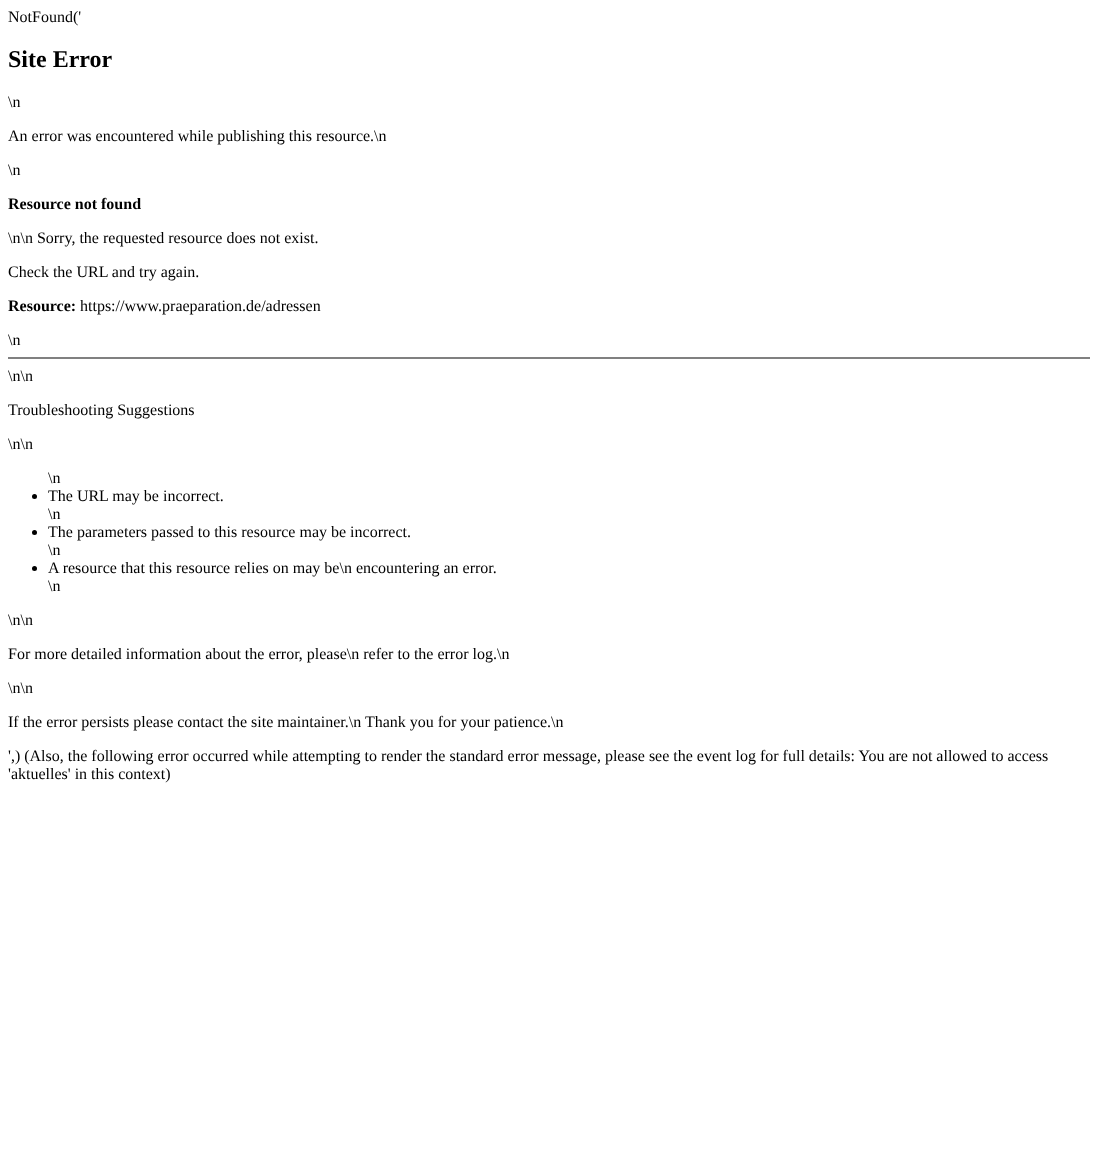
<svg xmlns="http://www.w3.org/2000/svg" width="1098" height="1167">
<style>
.a{font:16px Liberation Serif;fill:#000}
.b{font:bold 24px Liberation Serif;fill:#000}
.c{font:bold 16px Liberation Serif;fill:#000}
</style>
<rect width="100%" height="100%" fill="#fff"/>
<path fill="#808080" d="M8 357h1082v2H8z"/>
<circle fill="#000" cx="34.5" cy="496.5" r="2.5"/>
<circle fill="#000" cx="34.5" cy="532.5" r="2.5"/>
<circle fill="#000" cx="34.5" cy="568.5" r="2.5"/>
<text class="a" x="8" y="22">NotFound('</text>
<text class="b" x="8" y="67">Site Error</text>
<text class="a" x="8" y="107">\n</text>
<text class="a" x="8" y="141">An error was encountered while publishing this resource.\n</text>
<text class="a" x="8" y="175">\n</text>
<text class="c" x="8" y="209">Resource not found</text>
<text class="a" x="8" y="243">\n\n Sorry, the requested resource does not exist.</text>
<text class="a" x="8" y="277">Check the URL and try again.</text>
<text class="c" x="8" y="311">Resource:</text>
<text class="a" x="80" y="311">https://www.praeparation.de/adressen</text>
<text class="a" x="8" y="345">\n</text>
<text class="a" x="8" y="381">\n\n</text>
<text class="a" x="8" y="415">Troubleshooting Suggestions</text>
<text class="a" x="8" y="449">\n\n</text>
<text class="a" x="48" y="483">\n</text>
<text class="a" x="48" y="501">The URL may be incorrect.</text>
<text class="a" x="48" y="519">\n</text>
<text class="a" x="48" y="537">The parameters passed to this resource may be incorrect.</text>
<text class="a" x="48" y="555">\n</text>
<text class="a" x="48" y="573">A resource that this resource relies on may be\n encountering an error.</text>
<text class="a" x="48" y="591">\n</text>
<text class="a" x="8" y="625">\n\n</text>
<text class="a" x="8" y="659">For more detailed information about the error, please\n refer to the error log.\n</text>
<text class="a" x="8" y="693">\n\n</text>
<text class="a" x="8" y="727">If the error persists please contact the site maintainer.\n Thank you for your patience.\n</text>
<text class="a" x="8" y="761">',) (Also, the following error occurred while attempting to render the standard error message, please see the event log for full details: You are not allowed to access</text>
<text class="a" x="8" y="779">'aktuelles' in this context)</text>
</svg>
